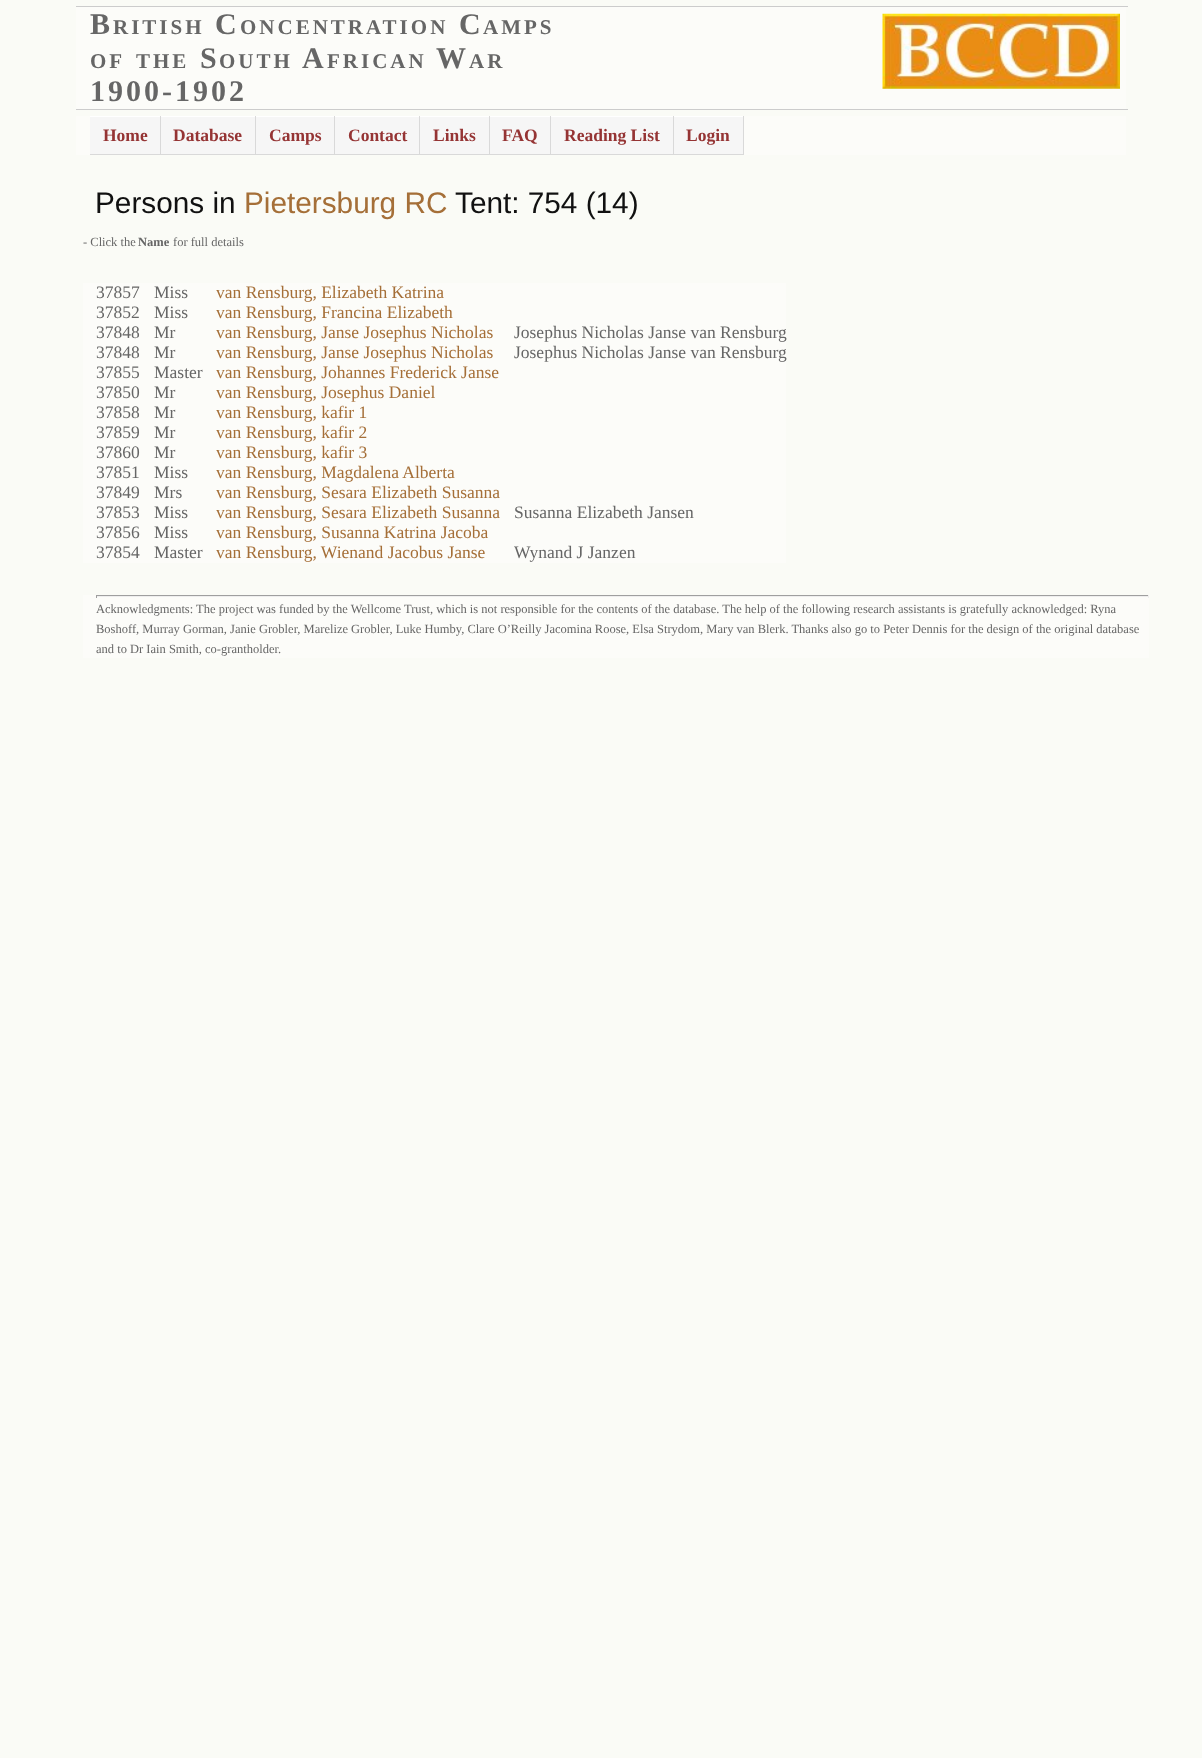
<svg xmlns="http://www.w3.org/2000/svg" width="1202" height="1758">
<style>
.a{font:bold 30px Liberation Serif;letter-spacing:3px;fill:#666}
.b{font:bold 21px Liberation Serif;letter-spacing:3px;fill:#666}
.c{font:bold 17.5px Liberation Serif;fill:#953434}
.d{font:29.75px Liberation Sans;fill:#111}
.e{font:29.75px Liberation Sans;fill:#a56f38}
.f{font:12.5px Liberation Serif;fill:#666}
.g{font:bold 12.5px Liberation Serif;fill:#666}
.h{font:17.5px Liberation Serif;fill:#666}
.i{font:17.5px Liberation Serif;fill:#a56f38}
</style>
<rect width="100%" height="100%" fill="#fafbf6"/>
<path fill="#fcfcf9" d="M76 7h1050v102H76z"/>
<path fill="#ccc" d="M76 6h1052v1H76z"/>
<path fill="#ccc" d="M76 109h1052v1H76z"/>
<image href="1.png" x="882" y="13" width="238" height="76"/>
<path fill="#fcfcf9" d="M76 116h1050v39H76z"/>
<path fill="#f6f6f6" d="M90 117h70v37H90z"/>
<path fill="#fff" d="M90 116h654v1H90z"/>
<path fill="#d9d9d9" d="M160 116h1v39H160z"/>
<path fill="#d9d9d9" d="M90 154h71v1H90z"/>
<path fill="#f6f6f6" d="M161 117h94v37H161z"/>
<path fill="#d9d9d9" d="M255 116h1v39H255z"/>
<path fill="#d9d9d9" d="M161 154h95v1H161z"/>
<path fill="#f6f6f6" d="M256 117h78v37H256z"/>
<path fill="#d9d9d9" d="M334 116h1v39H334z"/>
<path fill="#d9d9d9" d="M256 154h79v1H256z"/>
<path fill="#f6f6f6" d="M335 117h84v37H335z"/>
<path fill="#d9d9d9" d="M419 116h1v39H419z"/>
<path fill="#d9d9d9" d="M335 154h85v1H335z"/>
<path fill="#f6f6f6" d="M420 117h69v37H420z"/>
<path fill="#d9d9d9" d="M489 116h1v39H489z"/>
<path fill="#d9d9d9" d="M420 154h70v1H420z"/>
<path fill="#f6f6f6" d="M490 117h60v37H490z"/>
<path fill="#d9d9d9" d="M550 116h1v39H550z"/>
<path fill="#d9d9d9" d="M490 154h61v1H490z"/>
<path fill="#f6f6f6" d="M551 117h122v37H551z"/>
<path fill="#d9d9d9" d="M673 116h1v39H673z"/>
<path fill="#d9d9d9" d="M551 154h123v1H551z"/>
<path fill="#f6f6f6" d="M674 117h69v37H674z"/>
<path fill="#d9d9d9" d="M743 116h1v39H743z"/>
<path fill="#d9d9d9" d="M674 154h70v1H674z"/>
<path fill="#fcfcf9" d="M83 283h703v280H83z"/>
<path fill="#fcfcf9" d="M83 595h1066v63H83z"/>
<path fill="#9f9f9f" d="M96 595h1053v1H96z"/>
<path fill="#eee" d="M1148 595h1v3H1148z"/>
<path fill="#eee" d="M96 596h1053v1H96z"/>
<path fill="#9f9f9f" d="M96 595h1v3H96z"/>
<text class="a" x="90" y="34">B</text>
<text class="b" x="113" y="34">RITISH</text>
<text class="a" x="215" y="34">C</text>
<text class="b" x="240" y="34">ONCENTRATION</text>
<text class="a" x="459" y="34">C</text>
<text class="b" x="483" y="34">AMPS</text>
<text class="b" x="90" y="68">OF</text>
<text class="b" x="136" y="68">THE</text>
<text class="a" x="200" y="68">S</text>
<text class="b" x="219" y="68">OUTH</text>
<text class="a" x="302" y="68">A</text>
<text class="b" x="327" y="68">FRICAN</text>
<text class="a" x="436" y="68">W</text>
<text class="b" x="469" y="68">AR</text>
<text class="a" x="90" y="101">1900-1902</text>
<text class="c" x="103" y="141">Home</text>
<text class="c" x="173" y="141">Database</text>
<text class="c" x="269" y="141">Camps</text>
<text class="c" x="348" y="141">Contact</text>
<text class="c" x="433" y="141">Links</text>
<text class="c" x="502" y="141">FAQ</text>
<text class="c" x="564" y="141">Reading List</text>
<text class="c" x="686" y="141">Login</text>
<text class="d" x="95" y="213">Persons in</text>
<text class="e" x="244" y="213">Pietersburg RC</text>
<text class="d" x="455" y="213">Tent: 754 (14)</text>
<text class="f" x="83" y="246">- Click the</text>
<text class="g" x="138" y="246">Name</text>
<text class="f" x="173" y="246">for full details</text>
<text class="h" x="96" y="298">37857</text>
<text class="h" x="154" y="298">Miss</text>
<text class="i" x="216" y="298">van Rensburg, Elizabeth Katrina</text>
<text class="h" x="96" y="318">37852</text>
<text class="h" x="154" y="318">Miss</text>
<text class="i" x="216" y="318">van Rensburg, Francina Elizabeth</text>
<text class="h" x="96" y="338">37848</text>
<text class="h" x="154" y="338">Mr</text>
<text class="i" x="216" y="338">van Rensburg, Janse Josephus Nicholas</text>
<text class="h" x="514" y="338">Josephus Nicholas Janse van Rensburg</text>
<text class="h" x="96" y="358">37848</text>
<text class="h" x="154" y="358">Mr</text>
<text class="i" x="216" y="358">van Rensburg, Janse Josephus Nicholas</text>
<text class="h" x="514" y="358">Josephus Nicholas Janse van Rensburg</text>
<text class="h" x="96" y="378">37855</text>
<text class="h" x="154" y="378">Master</text>
<text class="i" x="216" y="378">van Rensburg, Johannes Frederick Janse</text>
<text class="h" x="96" y="398">37850</text>
<text class="h" x="154" y="398">Mr</text>
<text class="i" x="216" y="398">van Rensburg, Josephus Daniel</text>
<text class="h" x="96" y="418">37858</text>
<text class="h" x="154" y="418">Mr</text>
<text class="i" x="216" y="418">van Rensburg, kafir 1</text>
<text class="h" x="96" y="438">37859</text>
<text class="h" x="154" y="438">Mr</text>
<text class="i" x="216" y="438">van Rensburg, kafir 2</text>
<text class="h" x="96" y="458">37860</text>
<text class="h" x="154" y="458">Mr</text>
<text class="i" x="216" y="458">van Rensburg, kafir 3</text>
<text class="h" x="96" y="478">37851</text>
<text class="h" x="154" y="478">Miss</text>
<text class="i" x="216" y="478">van Rensburg, Magdalena Alberta</text>
<text class="h" x="96" y="498">37849</text>
<text class="h" x="154" y="498">Mrs</text>
<text class="i" x="216" y="498">van Rensburg, Sesara Elizabeth Susanna</text>
<text class="h" x="96" y="518">37853</text>
<text class="h" x="154" y="518">Miss</text>
<text class="i" x="216" y="518">van Rensburg, Sesara Elizabeth Susanna</text>
<text class="h" x="514" y="518">Susanna Elizabeth Jansen</text>
<text class="h" x="96" y="538">37856</text>
<text class="h" x="154" y="538">Miss</text>
<text class="i" x="216" y="538">van Rensburg, Susanna Katrina Jacoba</text>
<text class="h" x="96" y="558">37854</text>
<text class="h" x="154" y="558">Master</text>
<text class="i" x="216" y="558">van Rensburg, Wienand Jacobus Janse</text>
<text class="h" x="514" y="558">Wynand J Janzen</text>
<text class="f" x="96" y="613">Acknowledgments: The project was funded by the Wellcome Trust, which is not responsible for the contents of the database. The help of the following research assistants is gratefully acknowledged: Ryna</text>
<text class="f" x="96" y="633">Boshoff, Murray Gorman, Janie Grobler, Marelize Grobler, Luke Humby, Clare O’Reilly Jacomina Roose, Elsa Strydom, Mary van Blerk. Thanks also go to Peter Dennis for the design of the original database</text>
<text class="f" x="96" y="653">and to Dr Iain Smith, co-grantholder.</text>
</svg>
